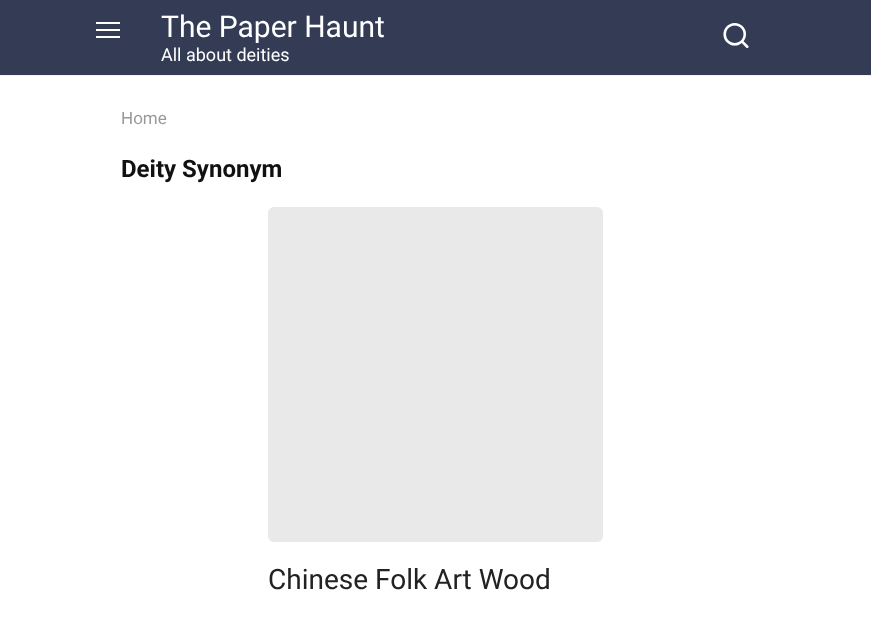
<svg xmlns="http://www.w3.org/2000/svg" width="871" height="619">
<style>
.a{font:30px Roboto;fill:#fff}
.b{font:18px Roboto;fill:#fff}
.c{font:30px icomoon;fill:#fff}
.d{font:17px Roboto;fill:#999}
.e{font:bold 24px Roboto;fill:#111}
.f{font:28px Roboto;fill:#222}
</style>
<rect width="100%" height="100%" fill="#fff"/>
<path fill="#343c55" d="M0 0h871v75H0z"/>
<path fill="#f3f3f3" d="M0 75h871v1H0z"/>
<path fill="#fff" d="M96 22h24v2H96z"/>
<path fill="#fff" d="M96 29h24v2H96z"/>
<path fill="#fff" d="M96 36h24v2H96z"/>
<image href="1.png" x="268" y="207" width="335" height="335"/>
<text class="a" x="161" y="37">The Paper Haunt</text>
<text class="b" x="161" y="61">All about deities</text>
<text class="c" x="721" y="48">🔍</text>
<text class="d" x="121" y="124">Home</text>
<text class="e" x="121" y="177">Deity Synonym</text>
<text class="f" x="268" y="589">Chinese Folk Art Wood</text>
</svg>
